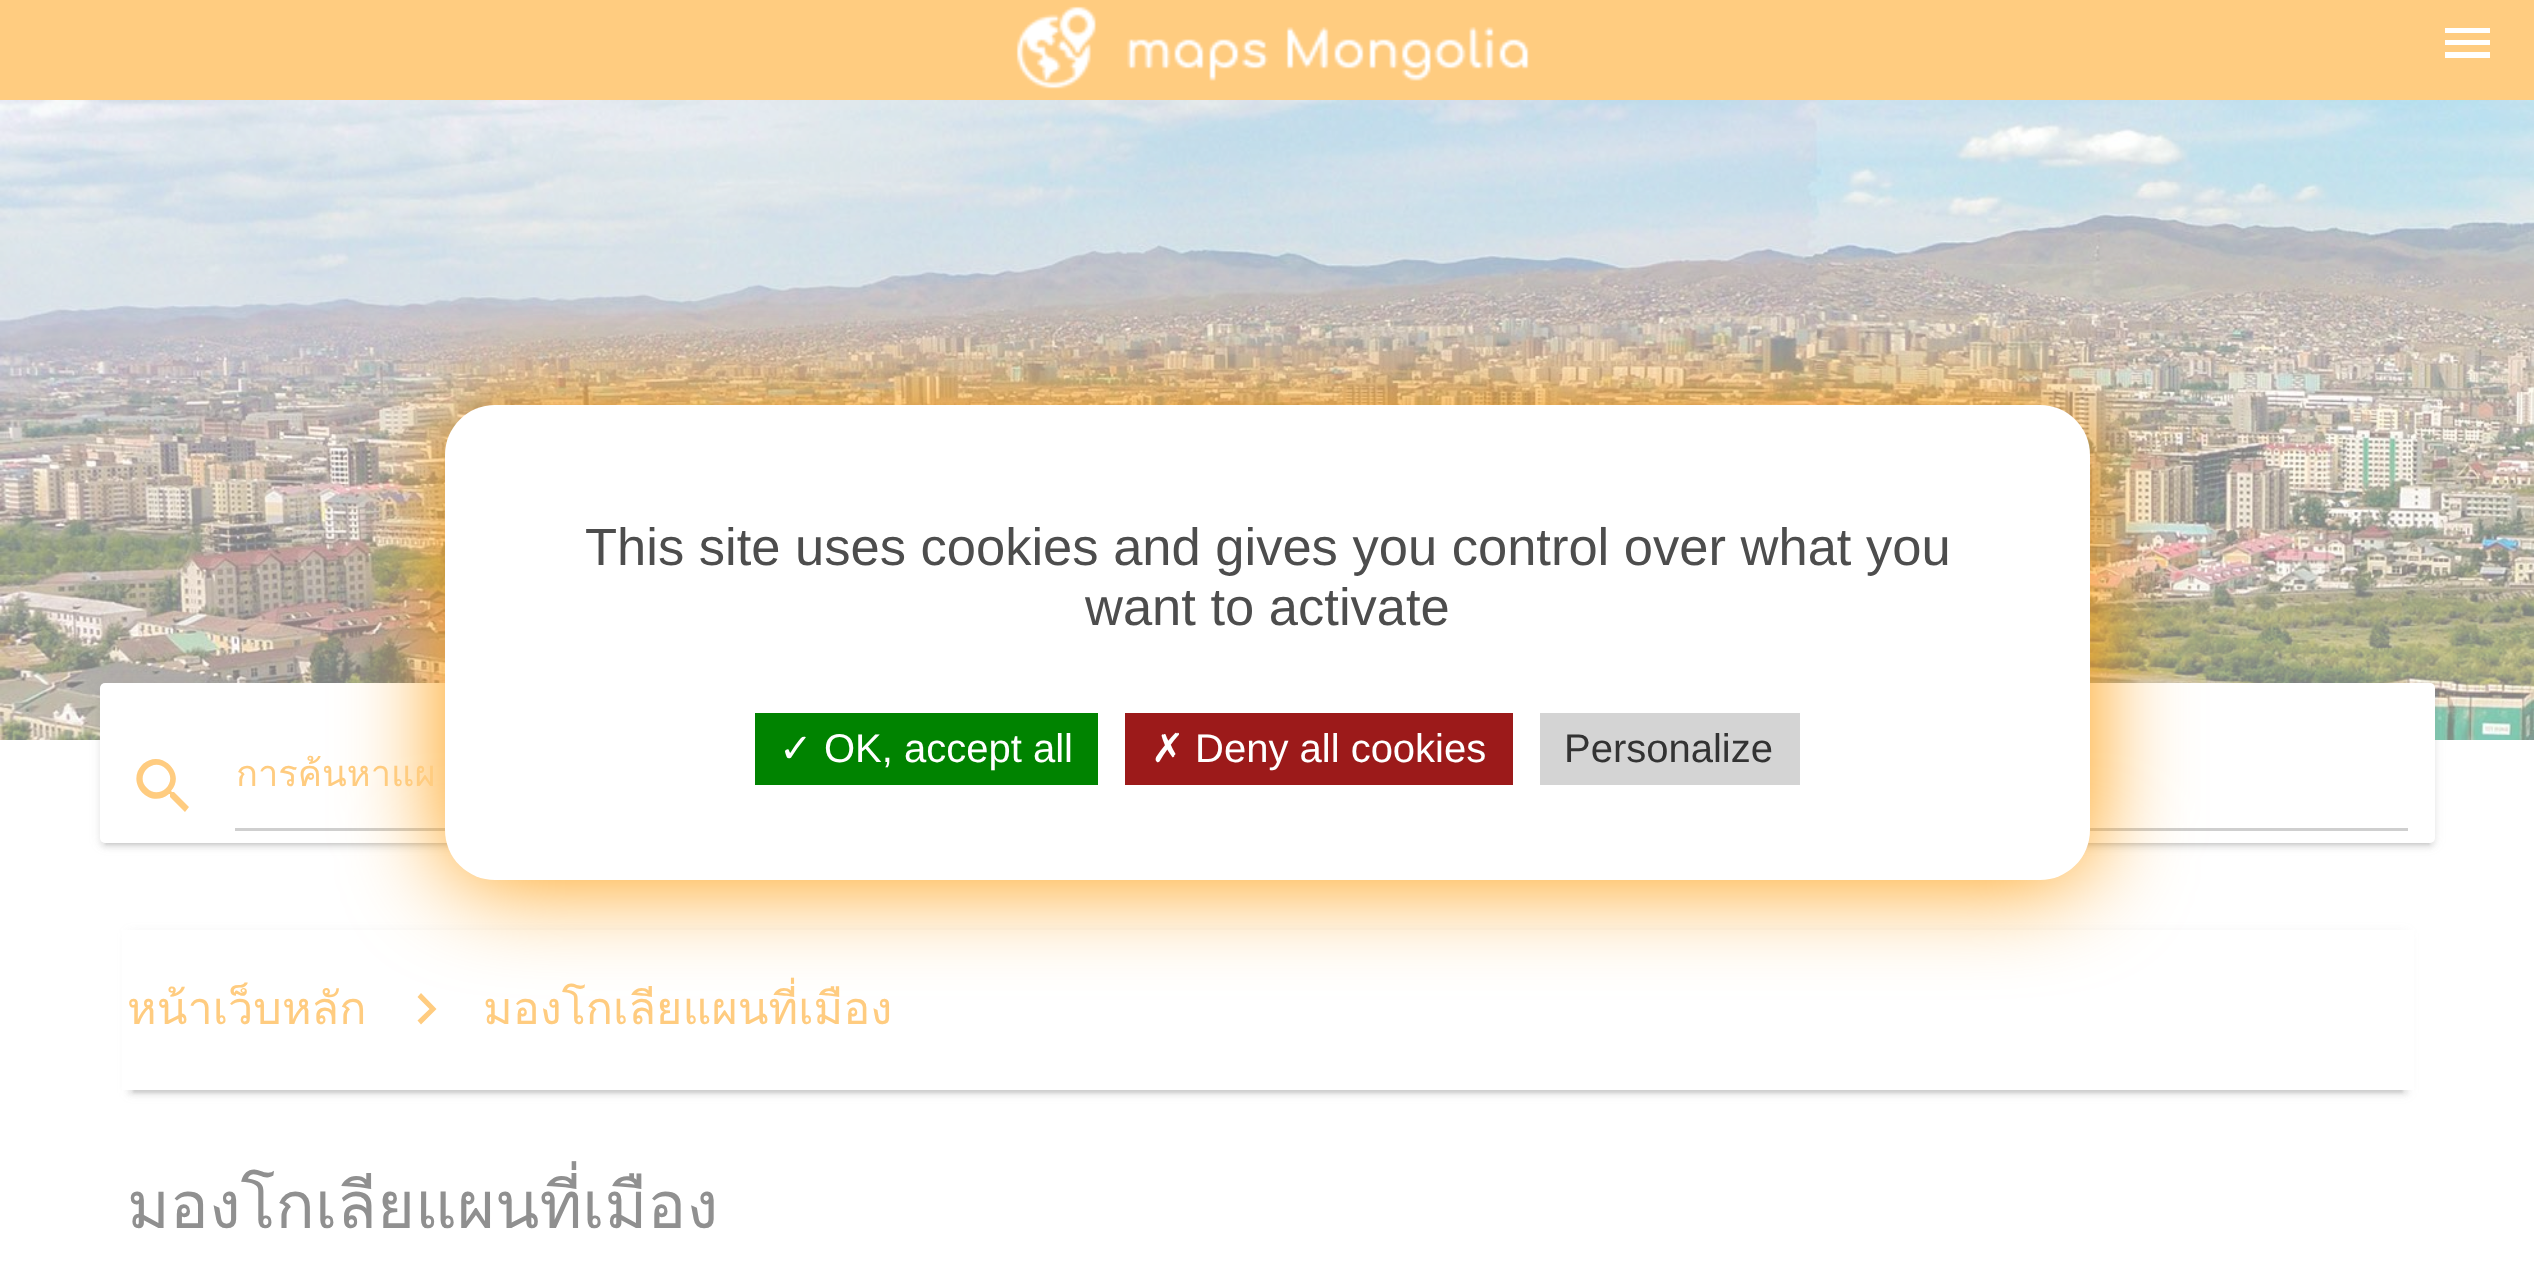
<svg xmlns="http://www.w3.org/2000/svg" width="2534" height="1284">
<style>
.a{font:52.5px Liberation Sans;fill:#4d4d4d}
.b{font:40px DejaVu Sans;fill:#fff}
.c{font:40px Liberation Sans;fill:#fff}
.d{font:40px Liberation Sans;fill:#333}
.e{font:36.25px Loma;fill:#ffcc80}
.f{font:45px Loma;fill:#ffcc80}
.g{font:65px Loma;fill:#909090}
</style>
<rect width="100%" height="100%" fill="#fff"/>
<path fill="#ffcc80" d="M0 0h2534v100H0z"/>
<image href="1.png" x="1016" y="6" width="513" height="83"/>
<path fill="#fff" d="M2445 28h45v5h-45zm0 17v-5h45v5zm0 13v-6h45v6z"/>
<image href="2.png" x="0" y="100" width="2534" height="640"/>
<path fill="#80808033" filter="blur(1px)" d="M105 695h2325v150H105z"/>
<rect fill="#8080801f" filter="blur(6px)" x="100" y="685" width="2335" height="160" rx="5"/>
<rect fill="#80808024" filter="blur(2.5px)" x="100" y="688" width="2335" height="160" rx="5"/>
<rect fill="#fff" x="100" y="683" width="2335" height="160" rx="5"/>
<path fill="#cfcfcf" d="M235 828h2173v3H235z"/>
<path fill="#80808033" filter="blur(1px)" d="M133 943h2270v150H133z"/>
<path fill="#8080801f" filter="blur(6px)" d="M128 933h2280v160H128z"/>
<path fill="#80808024" filter="blur(2.5px)" d="M128 935h2280v160H128z"/>
<path fill="#fff" d="M122 930h2292v160H122z"/>
<path fill="#ffcc80" d="M421 993l15.5 16l-15.5 15.5l-3.5-4l12-11.5l-12-12z"/>
<rect fill="#ff9800" filter="blur(50px)" x="445" y="405" width="1645" height="475" rx="50"/>
<rect fill="#fff" x="445" y="405" width="1645" height="475" rx="50"/>
<path fill="#008300" d="M755 713h343v72H755z"/>
<path fill="#9c1a1a" d="M1125 713h388v72H1125z"/>
<path fill="#d4d4d4" d="M1540 713h260v72H1540z"/>
<path fill="#ffcc80" d="M147 788c12 13 32-6 19-19c-13-13-32 7-19 19zm27 4l15 15l-4 5l-15-15v-3h-1c-19 16-44-11-27-29c18-18 45 8 29 26l1 1z"/>
<text class="a" x="585" y="565">This site uses cookies and gives you control over what you</text>
<text class="a" x="1085" y="625">want to activate</text>
<text class="b" x="779" y="762">✓</text>
<text class="c" x="824" y="762">OK, accept all</text>
<text class="b" x="1151" y="762">✗</text>
<text class="c" x="1195" y="762">Deny all cookies</text>
<text class="d" x="1564" y="762">Personalize</text>
<text class="e" x="236" y="786">การค้นหาแผ</text>
<text class="f" x="127" y="1024">หน้าเว็บหลัก</text>
<text class="f" x="483" y="1024">มองโกเลียแผนที่เมือง</text>
<text class="g" x="127" y="1228">มองโกเลียแผนที่เมือง</text>
</svg>
